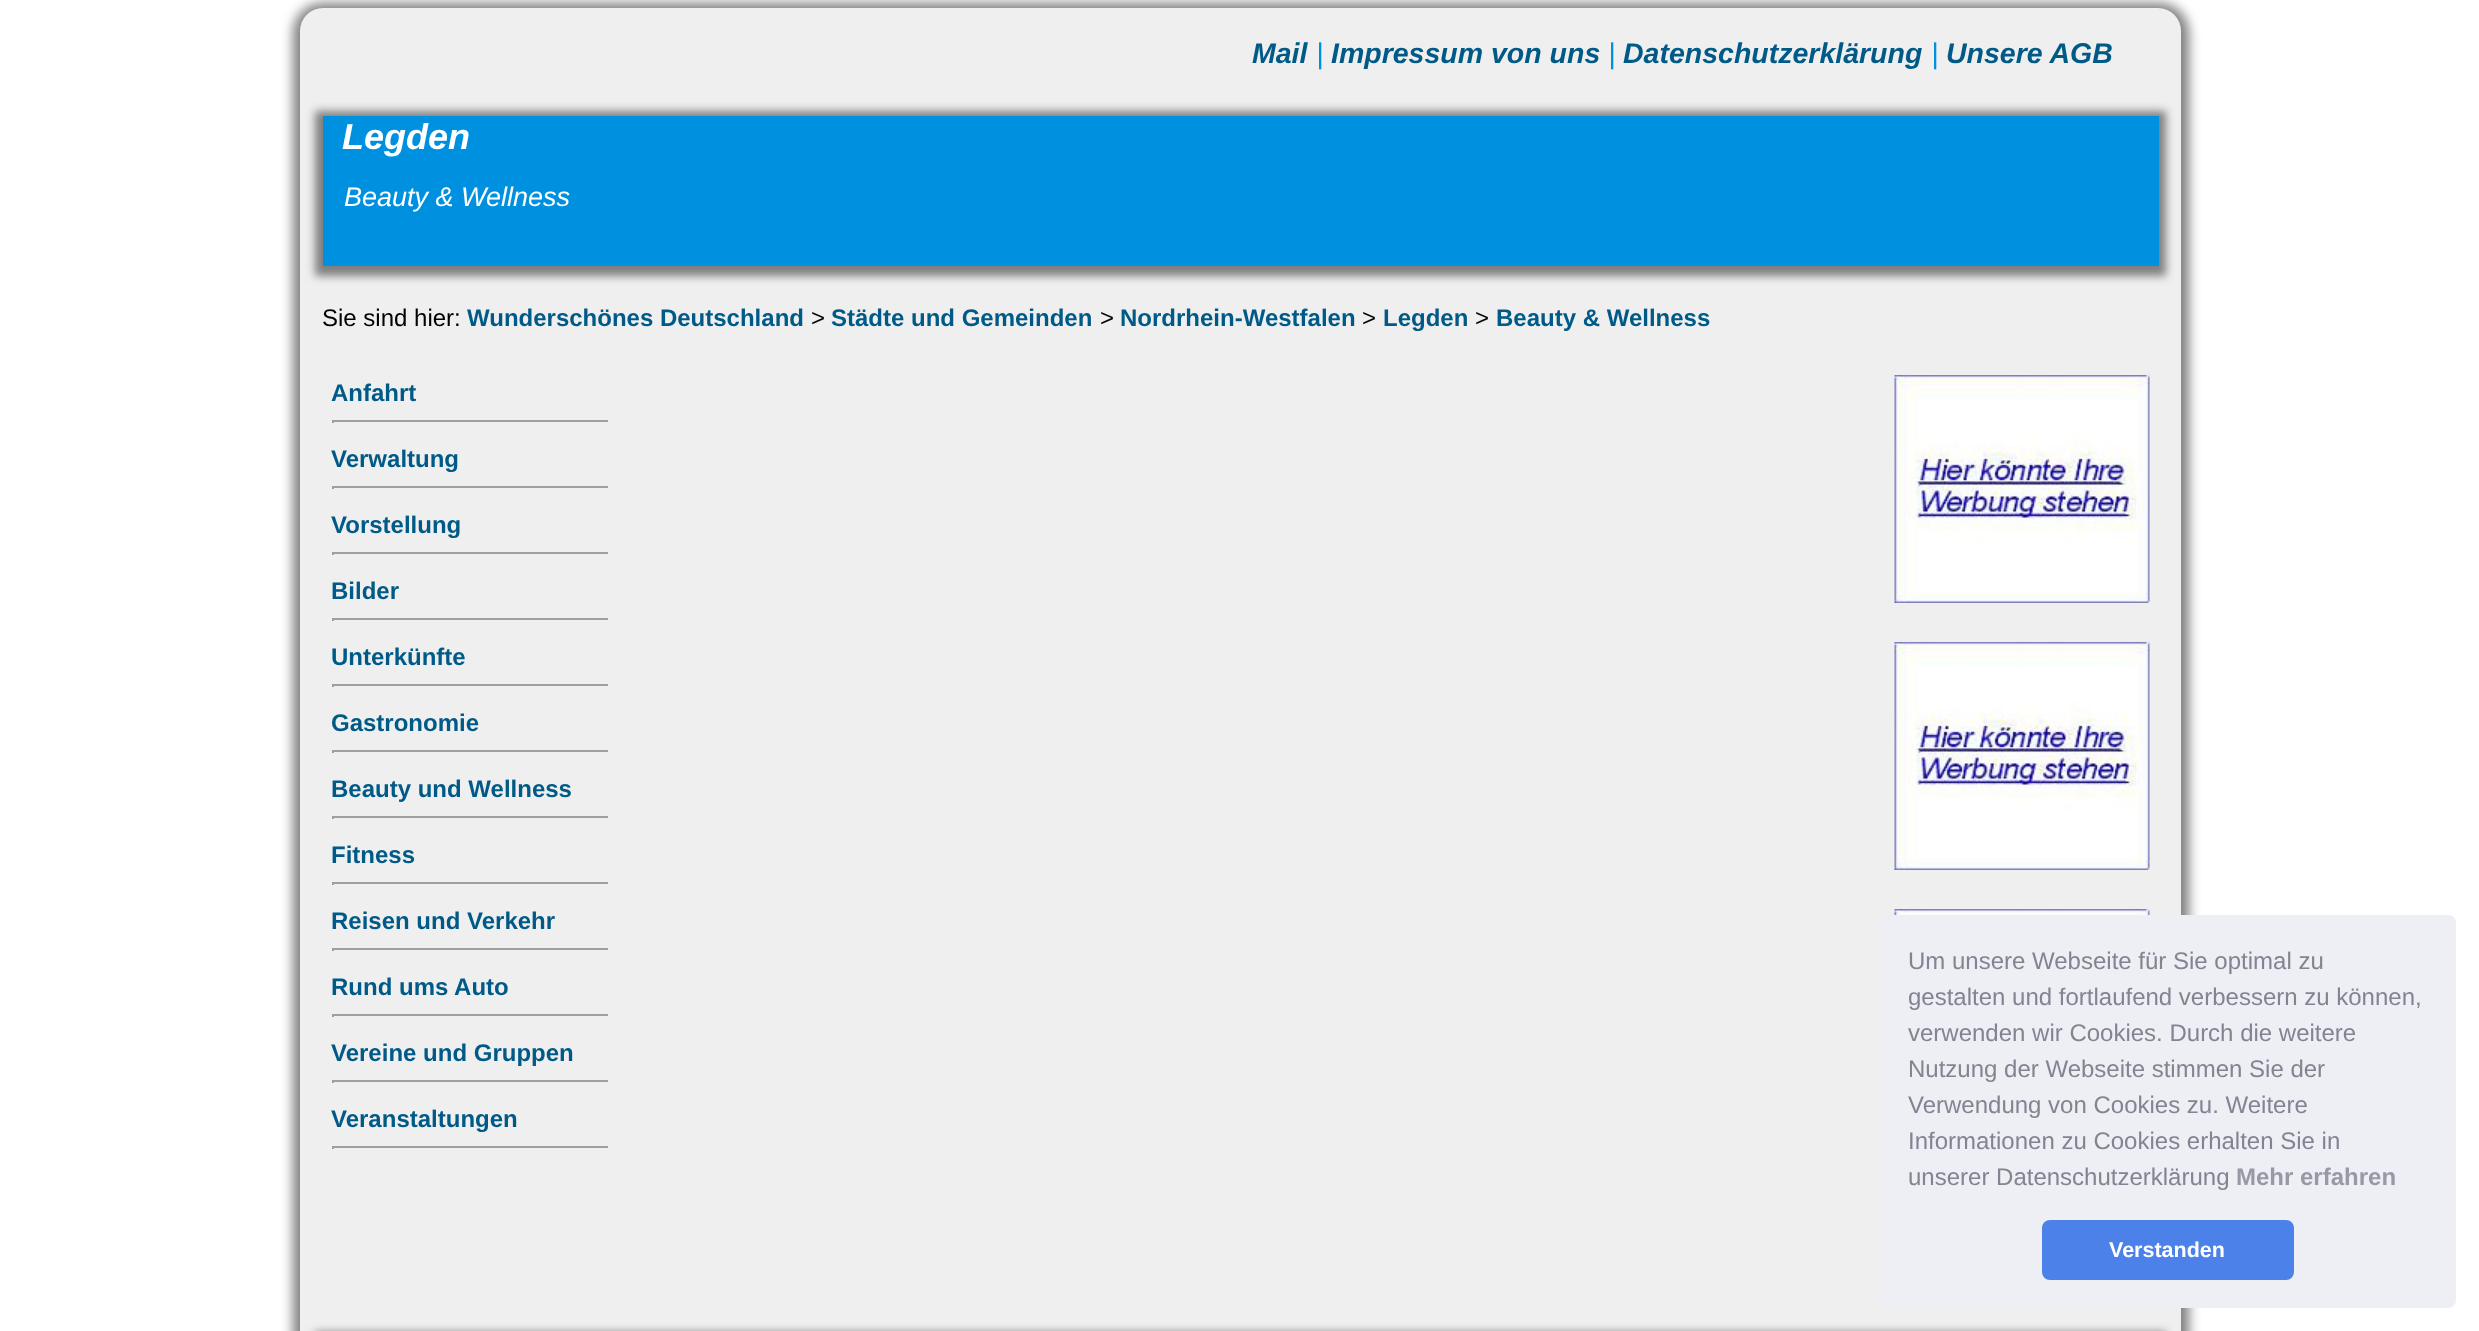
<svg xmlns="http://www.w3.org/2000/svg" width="2479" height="1331">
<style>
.a{font:italic bold 28.5px Liberation Sans;fill:#005a87}
.b{font:italic 28.5px Liberation Sans;fill:#0090e0}
.c{font:italic bold 36px Liberation Sans;fill:#fff}
.d{font:italic 27px Liberation Sans;fill:#fff}
.e{font:24px Liberation Sans;fill:#000}
.f{font:bold 24px Liberation Sans;fill:#005a87}
.g{font:24px Liberation Sans;fill:#838391}
.h{font:bold 24px Liberation Sans;fill:#9899a5}
.i{font:bold 21.5px Liberation Sans;fill:#fff}
</style>
<rect width="100%" height="100%" fill="#fff"/>
<rect fill="#7f7f7f" filter="blur(6px)" x="293" y="3" width="1896" height="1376" rx="30"/>
<rect fill="#efefef" x="300" y="8" width="1881" height="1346" rx="23"/>
<path fill="#7f7f7f" filter="blur(4px)" d="M315 111h1851v165H315z"/>
<path fill="#0090e0" d="M323 116h1836v150H323z"/>
<path fill="#9f9f9f" d="M332 420h277v2H332z"/>
<path fill="#eee" d="M608 420h1v3H608z"/>
<path fill="#9f9f9f" d="M332 420h2v3H332z"/>
<path fill="#9f9f9f" d="M332 486h277v2H332z"/>
<path fill="#eee" d="M608 486h1v3H608z"/>
<path fill="#9f9f9f" d="M332 486h2v3H332z"/>
<path fill="#9f9f9f" d="M332 552h277v2H332z"/>
<path fill="#eee" d="M608 552h1v3H608z"/>
<path fill="#9f9f9f" d="M332 552h2v3H332z"/>
<path fill="#9f9f9f" d="M332 618h277v2H332z"/>
<path fill="#eee" d="M608 618h1v3H608z"/>
<path fill="#9f9f9f" d="M332 618h2v3H332z"/>
<path fill="#9f9f9f" d="M332 684h277v2H332z"/>
<path fill="#eee" d="M608 684h1v3H608z"/>
<path fill="#9f9f9f" d="M332 684h2v3H332z"/>
<path fill="#9f9f9f" d="M332 750h277v2H332z"/>
<path fill="#eee" d="M608 750h1v3H608z"/>
<path fill="#9f9f9f" d="M332 750h2v3H332z"/>
<path fill="#9f9f9f" d="M332 816h277v2H332z"/>
<path fill="#eee" d="M608 816h1v3H608z"/>
<path fill="#9f9f9f" d="M332 816h2v3H332z"/>
<path fill="#9f9f9f" d="M332 882h277v2H332z"/>
<path fill="#eee" d="M608 882h1v3H608z"/>
<path fill="#9f9f9f" d="M332 882h2v3H332z"/>
<path fill="#9f9f9f" d="M332 948h277v2H332z"/>
<path fill="#eee" d="M608 948h1v3H608z"/>
<path fill="#9f9f9f" d="M332 948h2v3H332z"/>
<path fill="#9f9f9f" d="M332 1014h277v2H332z"/>
<path fill="#eee" d="M608 1014h1v3H608z"/>
<path fill="#9f9f9f" d="M332 1014h2v3H332z"/>
<path fill="#9f9f9f" d="M332 1080h277v2H332z"/>
<path fill="#eee" d="M608 1080h1v3H608z"/>
<path fill="#9f9f9f" d="M332 1080h2v3H332z"/>
<path fill="#9f9f9f" d="M332 1146h277v2H332z"/>
<path fill="#eee" d="M608 1146h1v3H608z"/>
<path fill="#9f9f9f" d="M332 1146h2v3H332z"/>
<image href="1.png" x="1894" y="375" width="256" height="228"/>
<image href="1.png" x="1894" y="642" width="256" height="228"/>
<image href="2.png" x="1894" y="909" width="256" height="6"/>
<path fill="#7f7f7f" filter="blur(4px)" d="M315 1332h1851v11H315z"/>
<rect fill="#edeff5" x="1880" y="915" width="576" height="393" rx="8"/>
<rect fill="#4b81e8" x="2042" y="1220" width="252" height="60" rx="8"/>
<text class="a" x="1252" y="63">Mail</text>
<text class="b" x="1316" y="63">|</text>
<text class="a" x="1331" y="63">Impressum von uns</text>
<text class="b" x="1608" y="63">|</text>
<text class="a" x="1623" y="63">Datenschutzerklärung</text>
<text class="b" x="1931" y="63">|</text>
<text class="a" x="1946" y="63">Unsere AGB</text>
<text class="c" x="342" y="149">Legden</text>
<text class="d" x="344" y="206">Beauty &amp; Wellness</text>
<text class="e" x="322" y="326">Sie sind hier:</text>
<text class="f" x="467" y="326">Wunderschönes Deutschland</text>
<text class="e" x="811" y="326">&gt;</text>
<text class="f" x="831" y="326">Städte und Gemeinden</text>
<text class="e" x="1100" y="326">&gt;</text>
<text class="f" x="1120" y="326">Nordrhein-Westfalen</text>
<text class="e" x="1362" y="326">&gt;</text>
<text class="f" x="1383" y="326">Legden</text>
<text class="e" x="1475" y="326">&gt;</text>
<text class="f" x="1496" y="326">Beauty &amp; Wellness</text>
<text class="f" x="331" y="401">Anfahrt</text>
<text class="f" x="331" y="467">Verwaltung</text>
<text class="f" x="331" y="533">Vorstellung</text>
<text class="f" x="331" y="599">Bilder</text>
<text class="f" x="331" y="665">Unterkünfte</text>
<text class="f" x="331" y="731">Gastronomie</text>
<text class="f" x="331" y="797">Beauty und Wellness</text>
<text class="f" x="331" y="863">Fitness</text>
<text class="f" x="331" y="929">Reisen und Verkehr</text>
<text class="f" x="331" y="995">Rund ums Auto</text>
<text class="f" x="331" y="1061">Vereine und Gruppen</text>
<text class="f" x="331" y="1127">Veranstaltungen</text>
<text class="g" x="1908" y="969">Um unsere Webseite für Sie optimal zu</text>
<text class="g" x="1908" y="1005">gestalten und fortlaufend verbessern zu können,</text>
<text class="g" x="1908" y="1041">verwenden wir Cookies. Durch die weitere</text>
<text class="g" x="1908" y="1077">Nutzung der Webseite stimmen Sie der</text>
<text class="g" x="1908" y="1113">Verwendung von Cookies zu. Weitere</text>
<text class="g" x="1908" y="1149">Informationen zu Cookies erhalten Sie in</text>
<text class="g" x="1908" y="1185">unserer Datenschutzerklärung</text>
<text class="h" x="2236" y="1185">Mehr erfahren</text>
<text class="i" x="2109" y="1257">Verstanden</text>
</svg>
